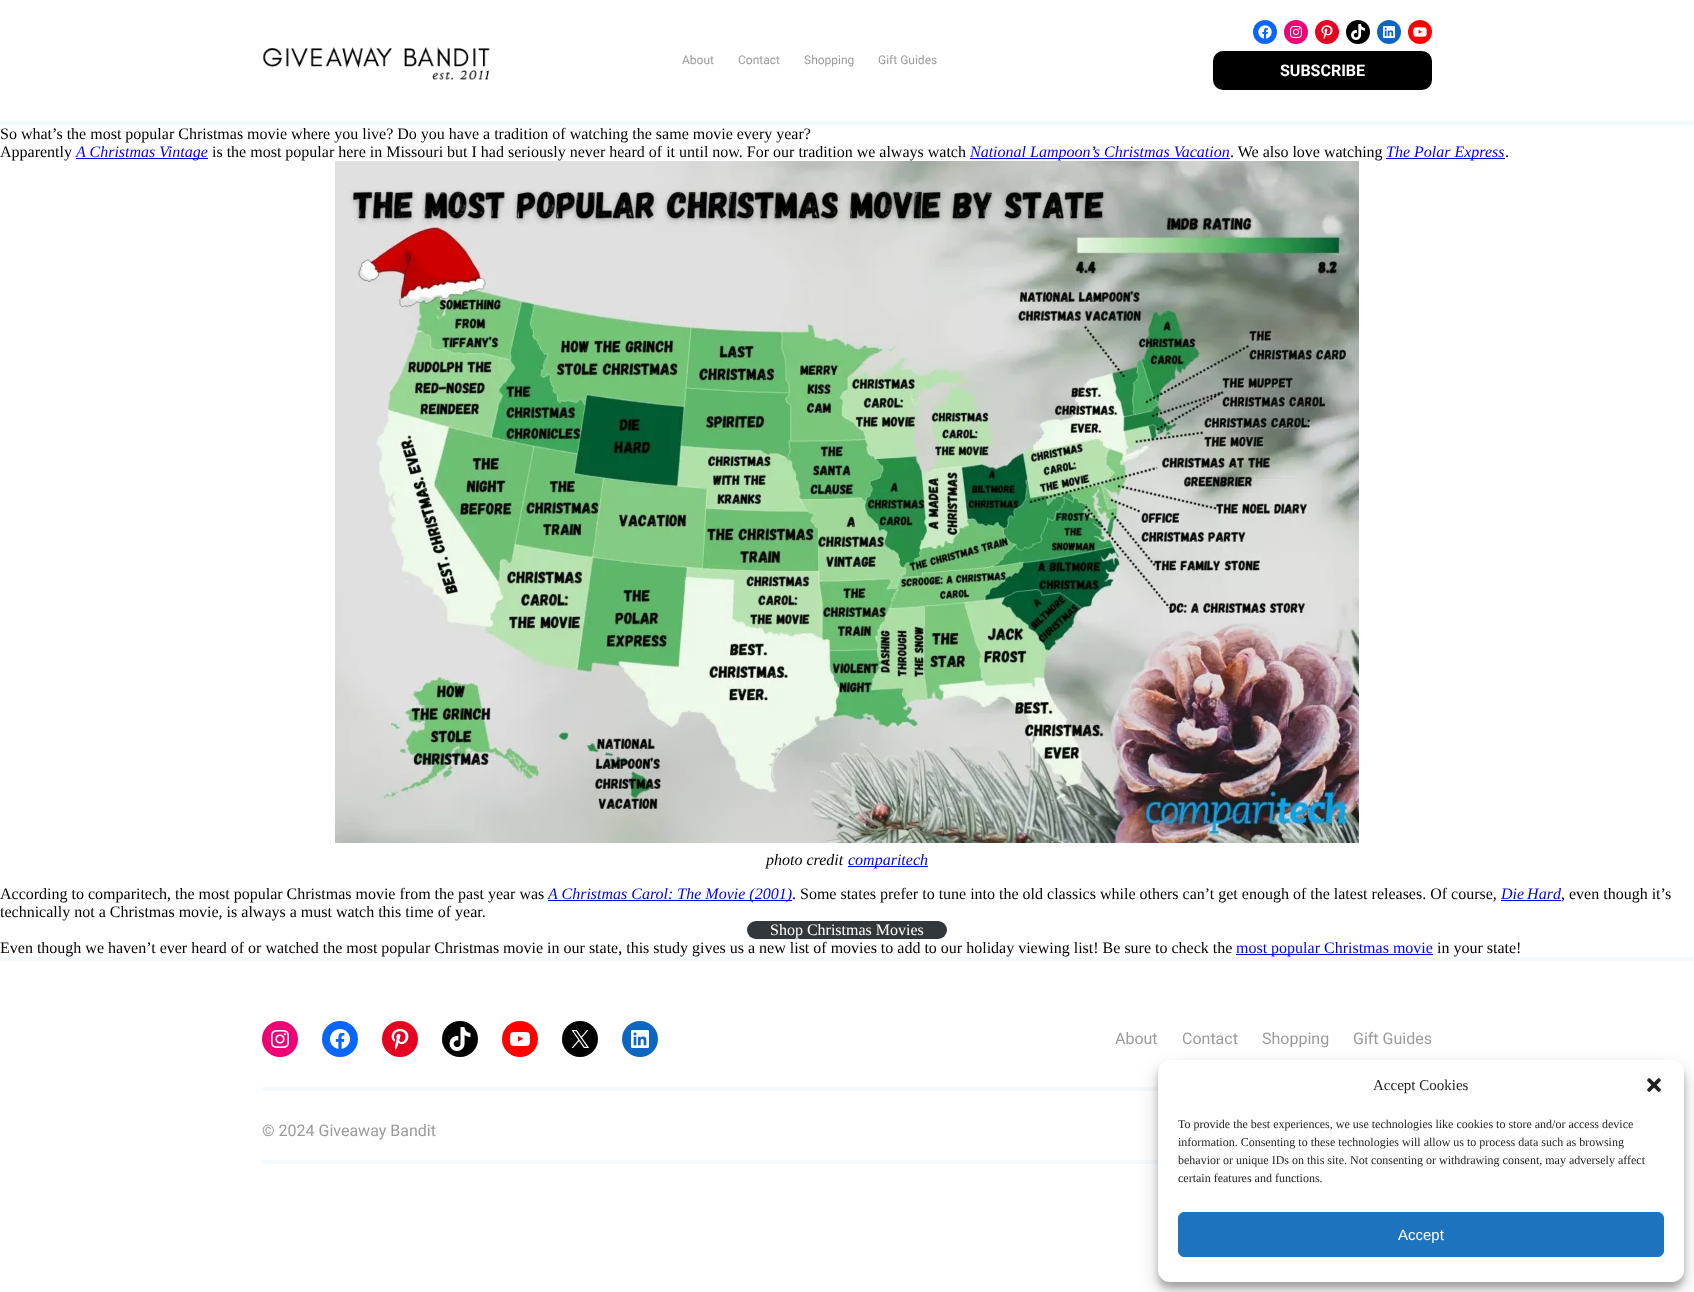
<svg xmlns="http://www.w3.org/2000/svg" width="1694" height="1292">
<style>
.a{font:12px Roboto;fill:#9b9b9b}
.b{font:bold 16px Roboto;fill:#fff}
.c{font:16px Liberation Serif;fill:#000}
.d{font:italic 16px Liberation Serif;fill:#00e}
.e{font:italic 16px Liberation Serif;fill:#000}
.f{font:16px Liberation Serif;fill:#fff}
.g{font:16px Liberation Serif;fill:#00e}
.h{font:16px Roboto;fill:#9b9b9b}
.i{font:15px Liberation Serif;fill:#222}
.j{font:12px Liberation Serif;fill:#222}
.k{font:15px Liberation Sans;fill:#fff}
</style>
<rect width="100%" height="100%" fill="#fff"/>
<image href="1.png" x="262" y="47" width="228" height="33"/>
<circle fill="#0866ff" cx="1265" cy="32" r="12"/>
<image href="2.png" x="1258" y="25" width="14" height="14"/>
<circle fill="#f00075" cx="1296" cy="32" r="12"/>
<image href="3.png" x="1290" y="26" width="12" height="12"/>
<circle fill="#e60122" cx="1327" cy="32" r="12"/>
<image href="4.png" x="1321" y="25" width="12" height="14"/>
<circle fill="#000" cx="1358" cy="32" r="12"/>
<image href="5.png" x="1351" y="24" width="14" height="16"/>
<circle fill="#0d66c2" cx="1389" cy="32" r="12"/>
<image href="6.png" x="1383" y="26" width="12" height="12"/>
<circle fill="#f00" cx="1420" cy="32" r="12"/>
<image href="7.png" x="1413" y="27" width="14" height="10"/>
<rect fill="#000" x="1213" y="51" width="219" height="39" rx="10"/>
<path fill="#f4f9fd" d="M0 121h1694v4H0z"/>
<path fill="#00e" d="M76 158h132v1H76z"/>
<path fill="#00e" d="M970 158h260v1H970z"/>
<path fill="#00e" d="M1386 158h119v1H1386z"/>
<image href="8.png" x="335" y="161" width="1024" height="682"/>
<path fill="#00e" d="M848 866h80v1H848z"/>
<path fill="#00e" d="M548 900h244v1H548z"/>
<path fill="#00e" d="M1501 900h60v1H1501z"/>
<rect fill="#32373c" x="747" y="921" width="200" height="18" rx="9"/>
<path fill="#00e" d="M1236 954h197v1H1236z"/>
<path fill="#f4f9fd" d="M0 957h1694v4H0z"/>
<path fill="#f4f9fd" d="M262 1160h896v4H262z"/>
<path fill="#f4f9fd" d="M262 1087h896v4H262z"/>
<circle fill="#f00075" cx="280" cy="1039" r="18"/>
<image href="9.png" x="271" y="1030" width="18" height="18"/>
<circle fill="#0866ff" cx="340" cy="1039" r="18"/>
<image href="10.png" x="330" y="1029" width="20" height="20"/>
<circle fill="#e60122" cx="400" cy="1039" r="18"/>
<image href="11.png" x="391" y="1029" width="18" height="21"/>
<circle fill="#000" cx="460" cy="1039" r="18"/>
<image href="12.png" x="449" y="1027" width="22" height="24"/>
<circle fill="#f00" cx="520" cy="1039" r="18"/>
<image href="13.png" x="510" y="1032" width="20" height="14"/>
<circle fill="#000" cx="580" cy="1039" r="18"/>
<image href="14.png" x="571" y="1030" width="18" height="18"/>
<circle fill="#0d66c2" cx="640" cy="1039" r="18"/>
<image href="15.png" x="631" y="1030" width="18" height="18"/>
<rect fill="#0000003b" filter="blur(3px)" x="1158" y="1066" width="526" height="222" rx="12"/>
<rect fill="#00000030" filter="blur(10px)" x="1158" y="1070" width="526" height="222" rx="12"/>
<rect fill="#fff" x="1158" y="1060" width="526" height="222" rx="12"/>
<image href="16.png" x="1647" y="1078" width="14" height="14"/>
<rect fill="#1e73be" stroke="#1e73be" x="1178.5" y="1212.5" width="485" height="44" rx="5.5"/>
<text class="a" x="682" y="64">About</text>
<text class="a" x="738" y="64">Contact</text>
<text class="a" x="804" y="64">Shopping</text>
<text class="a" x="878" y="64">Gift Guides</text>
<text class="b" x="1280" y="76">SUBSCRIBE</text>
<text class="c" x="0" y="139">So what’s the most popular Christmas movie where you live? Do you have a tradition of watching the same movie every year?</text>
<text class="c" x="0" y="157">Apparently</text>
<text class="d" x="76" y="157">A Christmas Vintage</text>
<text class="c" x="212" y="157">is the most popular here in Missouri but I had seriously never heard of it until now. For our tradition we always watch</text>
<text class="d" x="970" y="157">National Lampoon’s Christmas Vacation</text>
<text class="c" x="1230" y="157">. We also love watching</text>
<text class="d" x="1386" y="157">The Polar Express</text>
<text class="c" x="1505" y="157">.</text>
<text class="e" x="766" y="865">photo credit</text>
<text class="d" x="848" y="865">comparitech</text>
<text class="c" x="0" y="899">According to comparitech, the most popular Christmas movie from the past year was</text>
<text class="d" x="548" y="899">A Christmas Carol: The Movie (2001)</text>
<text class="c" x="792" y="899">. Some states prefer to tune into the old classics while others can’t get enough of the latest releases. Of course,</text>
<text class="d" x="1501" y="899" word-spacing="-1">Die Har</text>
<text class="d" x="1553" y="899">d</text>
<text class="c" x="1561" y="899">, even though it’s</text>
<text class="c" x="0" y="917">technically not a Christmas movie, is always a must watch this time of year.</text>
<text class="f" x="770" y="935">Shop Christmas Movies</text>
<text class="c" x="0" y="953">Even though we haven’t ever heard of or watched the most popular Christmas movie in our state, this study gives us a new list of movies to add to our holiday viewing list! Be sure to check the</text>
<text class="g" x="1236" y="953">most popular Christmas movie</text>
<text class="c" x="1437" y="953">in your state!</text>
<text class="h" x="1115" y="1044">About</text>
<text class="h" x="1182" y="1044">Contact</text>
<text class="h" x="1262" y="1044">Shopping</text>
<text class="h" x="1353" y="1044">Gift Guides</text>
<text class="h" x="262" y="1136">© 2024 Giveaway Bandit</text>
<text class="i" x="1373" y="1090">Accept Cookies</text>
<text class="j" x="1178" y="1128">To provide the best experiences, we use technologies like cookies to store and/or access device</text>
<text class="j" x="1178" y="1146">information. Consenting to these technologies will allow us to process data such as browsing</text>
<text class="j" x="1178" y="1164">behavior or unique IDs on this site. Not consenting or withdrawing consent, may adversely affect</text>
<text class="j" x="1178" y="1182">certain features and functions.</text>
<text class="k" x="1398" y="1240">Accept</text>
</svg>
